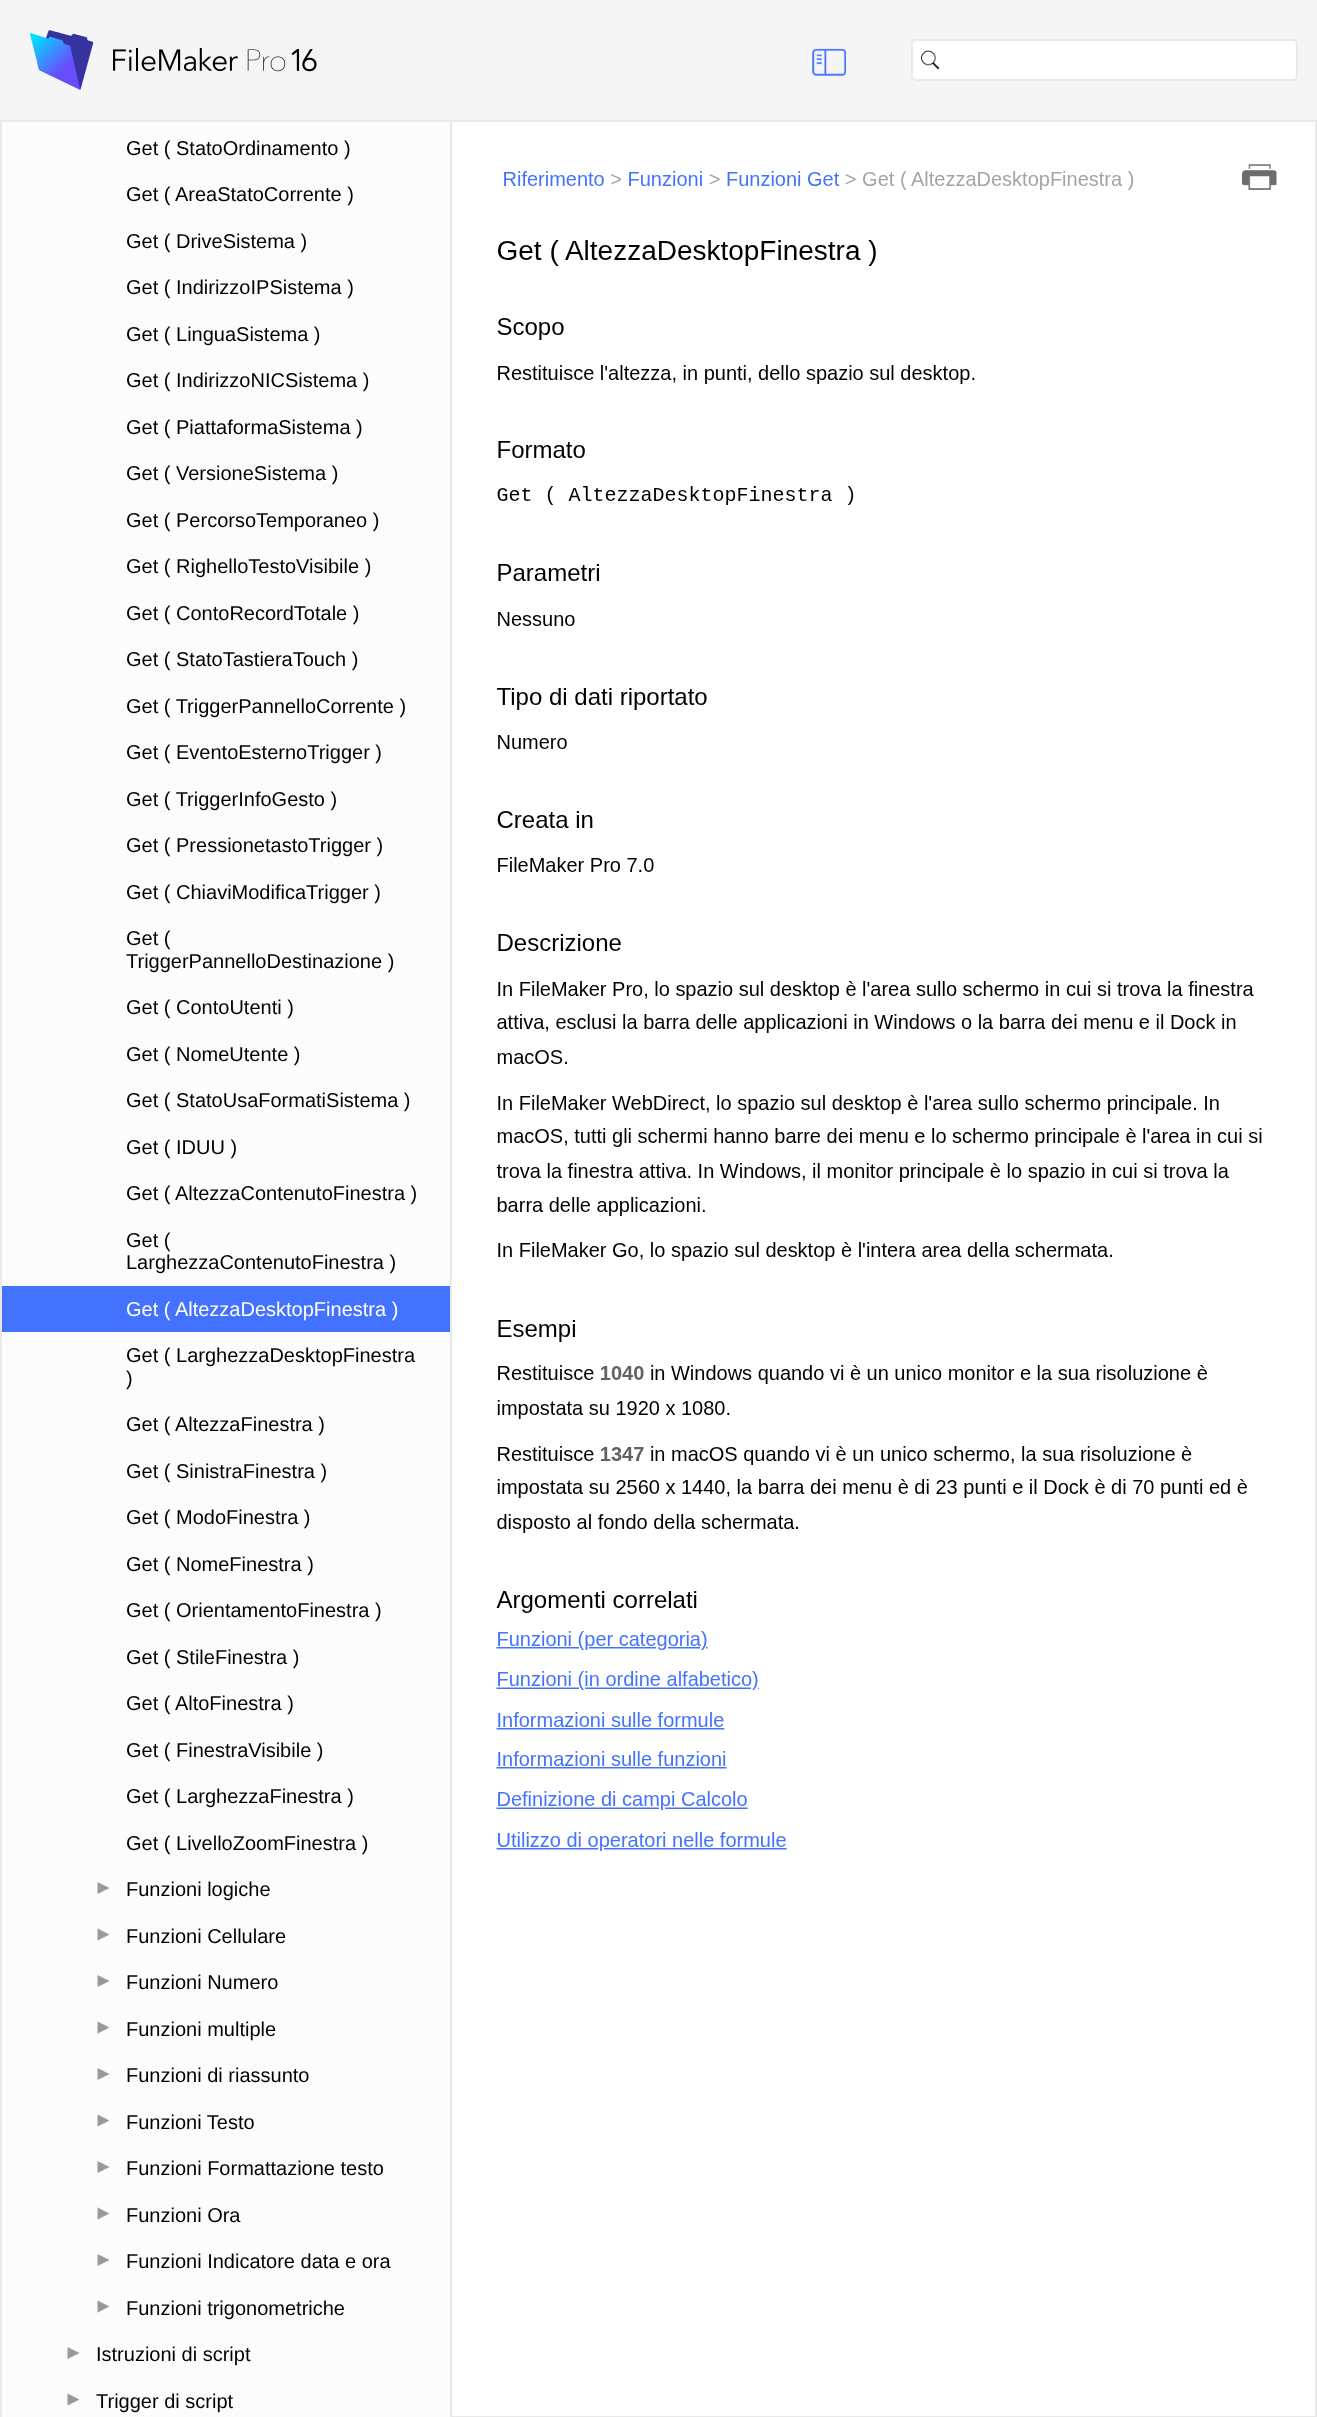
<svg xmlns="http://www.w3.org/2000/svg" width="1317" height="2417">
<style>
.a{font:20px Liberation Sans;fill:#000}
.b{font:20px Liberation Sans;fill:#fff}
</style>
<rect width="100%" height="100%" fill="#f5f5f5"/>
<image href="1.png" x="30" y="30" width="287" height="60"/>
<image href="2.png" x="812" y="48" width="34" height="28"/>
<rect fill="#fff" x="911" y="39" width="387" height="42" rx="5"/>
<image href="3.png" x="921" y="50" width="19" height="20"/>
<rect fill="none" stroke="#e9e9e9" stroke-width="2" x="912" y="40" width="385" height="40" rx="4"/>
<path fill="#fff" d="M1277 122h38v2294H1277z"/>
<path fill="none" stroke="#e9e9e9" stroke-width="2" d="M1 121h451v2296H1z"/>
<path fill="#fcfcfc" d="M2 122h448v2295H2z"/>
<path fill="#4372ff" d="M2 1286h448v46H2z"/>
<image href="4.png" x="97" y="1882" width="13" height="12"/>
<image href="5.png" x="97" y="1928" width="13" height="13"/>
<image href="4.png" x="97" y="1975" width="13" height="12"/>
<image href="5.png" x="97" y="2021" width="13" height="13"/>
<image href="4.png" x="97" y="2068" width="13" height="12"/>
<image href="5.png" x="97" y="2114" width="13" height="13"/>
<image href="4.png" x="97" y="2161" width="13" height="12"/>
<image href="5.png" x="97" y="2207" width="13" height="13"/>
<image href="4.png" x="97" y="2254" width="13" height="12"/>
<image href="5.png" x="97" y="2300" width="13" height="13"/>
<image href="4.png" x="67" y="2347" width="13" height="12"/>
<image href="5.png" x="67" y="2393" width="13" height="13"/>
<path fill="none" stroke="#e9e9e9" stroke-width="2" d="M451 121h865v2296H451z"/>
<image href="6.png" x="452" y="122" width="825" height="2294"/>
<text class="a" x="126" y="155">Get ( StatoOrdinamento )</text>
<text class="a" x="126" y="201">Get ( AreaStatoCorrente )</text>
<text class="a" x="126" y="248">Get ( DriveSistema )</text>
<text class="a" x="126" y="294">Get ( IndirizzoIPSistema )</text>
<text class="a" x="126" y="341">Get ( LinguaSistema )</text>
<text class="a" x="126" y="387">Get ( IndirizzoNICSistema )</text>
<text class="a" x="126" y="434">Get ( PiattaformaSistema )</text>
<text class="a" x="126" y="480">Get ( VersioneSistema )</text>
<text class="a" x="126" y="527">Get ( PercorsoTemporaneo )</text>
<text class="a" x="126" y="573">Get ( RighelloTestoVisibile )</text>
<text class="a" x="126" y="620">Get ( ContoRecordTotale )</text>
<text class="a" x="126" y="666">Get ( StatoTastieraTouch )</text>
<text class="a" x="126" y="713">Get ( TriggerPannelloCorrente )</text>
<text class="a" x="126" y="759">Get ( EventoEsternoTrigger )</text>
<text class="a" x="126" y="806">Get ( TriggerInfoGesto )</text>
<text class="a" x="126" y="852">Get ( PressionetastoTrigger )</text>
<text class="a" x="126" y="899">Get ( ChiaviModificaTrigger )</text>
<text class="a" x="126" y="945">Get (</text>
<text class="a" x="126" y="968">TriggerPannelloDestinazione )</text>
<text class="a" x="126" y="1014">Get ( ContoUtenti )</text>
<text class="a" x="126" y="1061">Get ( NomeUtente )</text>
<text class="a" x="126" y="1107">Get ( StatoUsaFormatiSistema )</text>
<text class="a" x="126" y="1154">Get ( IDUU )</text>
<text class="a" x="126" y="1200">Get ( AltezzaContenutoFinestra )</text>
<text class="a" x="126" y="1247">Get (</text>
<text class="a" x="126" y="1269">LarghezzaContenutoFinestra )</text>
<text class="b" x="126" y="1316">Get ( AltezzaDesktopFinestra )</text>
<text class="a" x="126" y="1362">Get ( LarghezzaDesktopFinestra</text>
<text class="a" x="126" y="1385">)</text>
<text class="a" x="126" y="1431">Get ( AltezzaFinestra )</text>
<text class="a" x="126" y="1478">Get ( SinistraFinestra )</text>
<text class="a" x="126" y="1524">Get ( ModoFinestra )</text>
<text class="a" x="126" y="1571">Get ( NomeFinestra )</text>
<text class="a" x="126" y="1617">Get ( OrientamentoFinestra )</text>
<text class="a" x="126" y="1664">Get ( StileFinestra )</text>
<text class="a" x="126" y="1710">Get ( AltoFinestra )</text>
<text class="a" x="126" y="1757">Get ( FinestraVisibile )</text>
<text class="a" x="126" y="1803">Get ( LarghezzaFinestra )</text>
<text class="a" x="126" y="1850">Get ( LivelloZoomFinestra )</text>
<text class="a" x="126" y="1896">Funzioni logiche</text>
<text class="a" x="126" y="1943">Funzioni Cellulare</text>
<text class="a" x="126" y="1989">Funzioni Numero</text>
<text class="a" x="126" y="2036">Funzioni multiple</text>
<text class="a" x="126" y="2082">Funzioni di riassunto</text>
<text class="a" x="126" y="2129">Funzioni Testo</text>
<text class="a" x="126" y="2175">Funzioni Formattazione testo</text>
<text class="a" x="126" y="2222">Funzioni Ora</text>
<text class="a" x="126" y="2268">Funzioni Indicatore data e ora</text>
<text class="a" x="126" y="2315">Funzioni trigonometriche</text>
<text class="a" x="96" y="2361">Istruzioni di script</text>
<text class="a" x="96" y="2408">Trigger di script</text>
</svg>
